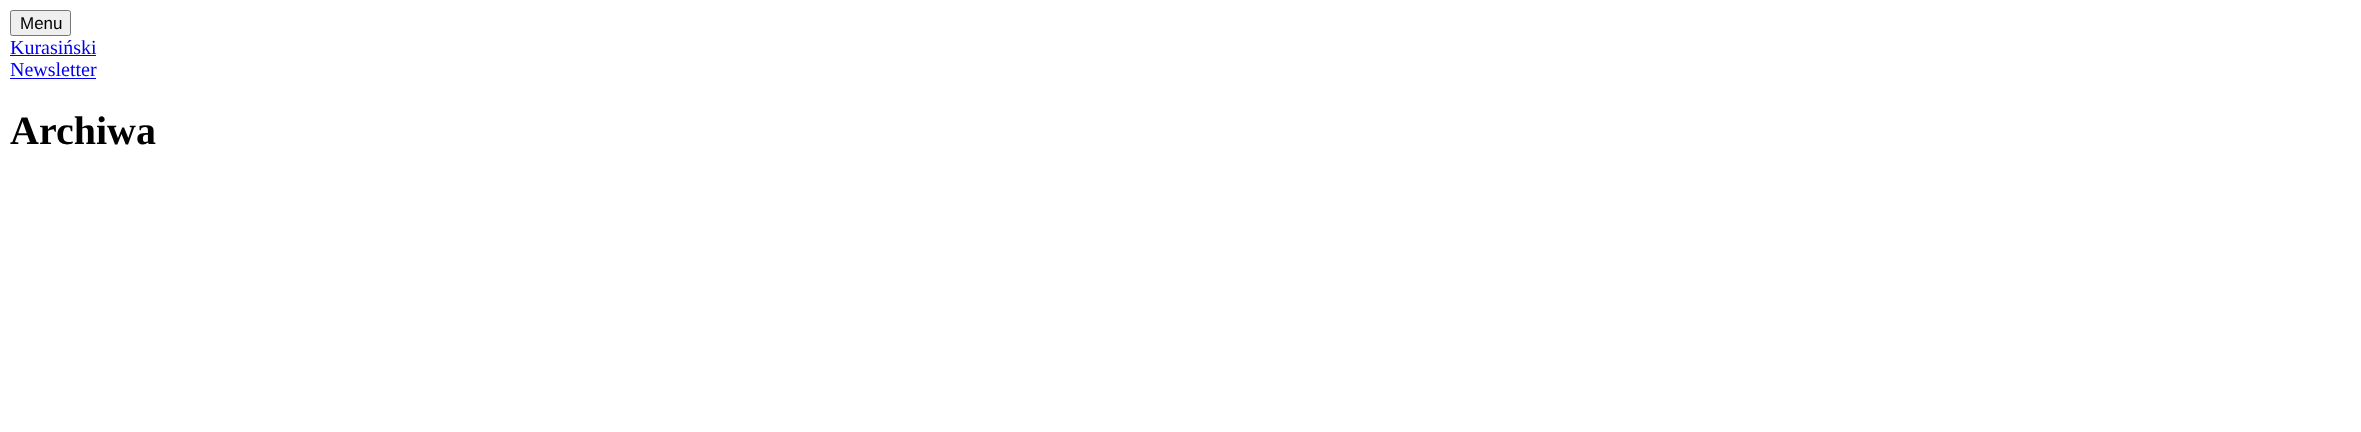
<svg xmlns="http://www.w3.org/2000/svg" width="2361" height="432">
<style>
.a{font:17px Liberation Sans;fill:#000}
.b{font:20px Liberation Serif;fill:#00e}
.c{font:bold 40px Liberation Serif;fill:#000}
</style>
<rect width="100%" height="100%" fill="#fff"/>
<rect fill="#efefef" stroke="#767676" x="10.5" y="10.5" width="60" height="25" rx="2"/>
<path fill="#00e" d="M10 55h86v1H10z"/>
<path fill="#00e" d="M10 78h86v1H10z"/>
<text class="a" x="20" y="29">Menu</text>
<text class="b" x="10" y="54">Kurasiński</text>
<text class="b" x="10" y="76">Newsletter</text>
<text class="c" x="10" y="144">Archiwa</text>
</svg>
